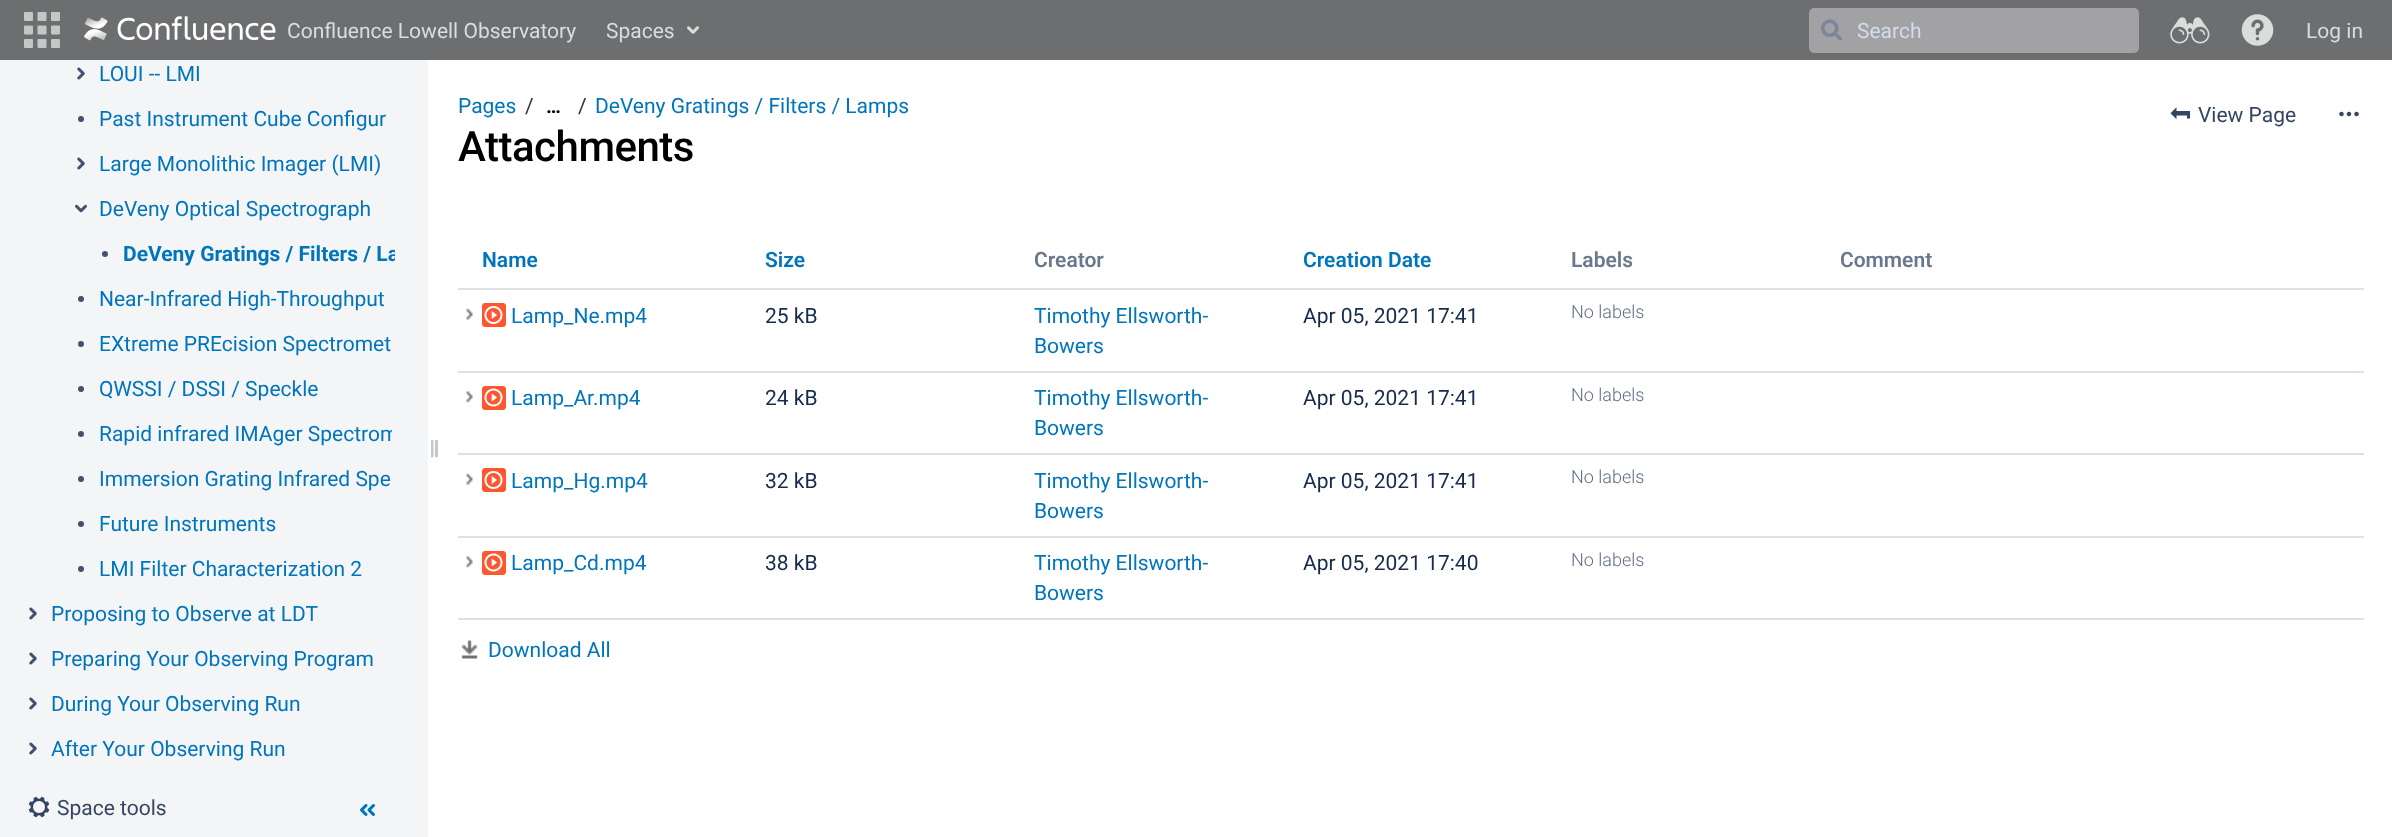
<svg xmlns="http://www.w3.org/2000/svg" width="2392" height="837">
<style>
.a{font:21px Roboto;fill:#dbdcdc}
.b{font:21px Roboto;fill:#d2dced}
.c{font:21px Roboto;fill:#0075bc}
.d{font:bold 21px Roboto;fill:#0075bc}
.e{font:21px Roboto;fill:#344563}
.f{font:21px Roboto;fill:#333}
.g{font:bold 20px Roboto;fill:#000}
.h{font:500 42px Roboto;letter-spacing:-0.5px;fill:#000}
.i{font:600 21px Roboto;fill:#0075bc}
.j{font:600 21px Roboto;fill:#6b778c}
.k{font:21px Roboto;fill:#172b4d}
.l{font:300 18px Roboto;fill:#5e6c84}
</style>
<defs>
<clipPath id="clip1"><path d="M123 239h272v30H123z"/></clipPath>
<clipPath id="clip2"><path d="M99 419h293v30H99z"/></clipPath>
</defs>
<rect width="100%" height="100%" fill="#f4f5f7"/>
<path fill="#6d6e70" d="M0 0h2392v60H0z"/>
<image href="1.png" x="24" y="12" width="36" height="36"/>
<image href="2.png" x="84" y="16" width="192" height="25"/>
<image href="3.png" x="687" y="26" width="12" height="8"/>
<rect fill="#a2a2a4" x="1809" y="8" width="330" height="45" rx="5"/>
<image href="4.png" x="1821" y="19" width="21" height="22"/>
<image href="5.png" x="2170" y="17" width="40" height="27"/>
<image href="6.png" x="2241" y="14" width="33" height="32"/>
<image href="7.png" x="77" y="67" width="8" height="13"/>
<circle fill="#42526e" cx="81" cy="119" r="3"/>
<image href="7.png" x="77" y="157" width="8" height="13"/>
<image href="8.png" x="75" y="204" width="12" height="9"/>
<circle fill="#42526e" cx="105" cy="254" r="3"/>
<circle fill="#42526e" cx="81" cy="299" r="3"/>
<circle fill="#42526e" cx="81" cy="344" r="3"/>
<circle fill="#42526e" cx="81" cy="389" r="3"/>
<circle fill="#42526e" cx="81" cy="434" r="3"/>
<circle fill="#42526e" cx="81" cy="479" r="3"/>
<circle fill="#42526e" cx="81" cy="524" r="3"/>
<circle fill="#42526e" cx="81" cy="569" r="3"/>
<image href="7.png" x="29" y="607" width="8" height="13"/>
<image href="7.png" x="29" y="652" width="8" height="13"/>
<image href="7.png" x="29" y="697" width="8" height="13"/>
<image href="7.png" x="29" y="742" width="8" height="13"/>
<path fill="#fff" d="M428 60h1964v777H428z"/>
<image href="9.png" x="431" y="440" width="7" height="18"/>
<image href="10.png" x="28" y="796" width="22" height="22"/>
<image href="11.png" x="360" y="804" width="15" height="12"/>
<image href="12.png" x="2170" y="107" width="20" height="13"/>
<image href="13.png" x="2339" y="111" width="20" height="6"/>
<path fill="#dfe1e6" d="M458 288h1906v2H458z"/>
<image href="14.png" x="466" y="308" width="7" height="12"/>
<image href="15.png" x="482" y="303" width="24" height="24"/>
<path fill="#dfe1e6" d="M458 371h1906v2H458z"/>
<image href="16.png" x="466" y="391" width="7" height="12"/>
<image href="17.png" x="482" y="386" width="24" height="24"/>
<path fill="#dfe1e6" d="M458 453h1906v2H458z"/>
<image href="14.png" x="466" y="473" width="7" height="12"/>
<image href="15.png" x="482" y="468" width="24" height="24"/>
<path fill="#dfe1e6" d="M458 536h1906v2H458z"/>
<image href="16.png" x="466" y="556" width="7" height="12"/>
<image href="17.png" x="482" y="551" width="24" height="24"/>
<path fill="#dfe1e6" d="M458 618h1906v2H458z"/>
<image href="18.png" x="461" y="640" width="17" height="19"/>
<text class="a" x="287" y="38">Confluence Lowell Observatory</text>
<text class="a" x="606" y="38">Spaces</text>
<text class="b" x="1857" y="38">Search</text>
<text class="a" x="2306" y="38">Log in</text>
<text class="c" x="99" y="81">LOUI -- LMI</text>
<text class="c" x="99" y="126">Past Instrument Cube Configur</text>
<text class="c" x="99" y="171">Large Monolithic Imager (LMI)</text>
<text class="c" x="99" y="216">DeVeny Optical Spectrograph</text>
<g clip-path="url(#clip1)">
<text class="d" x="123" y="261">DeVeny Gratings / Filters / La</text>
</g>
<text class="c" x="99" y="306">Near-Infrared High-Throughput</text>
<text class="c" x="99" y="351">EXtreme PREcision Spectromet</text>
<text class="c" x="99" y="396">QWSSI / DSSI / Speckle</text>
<g clip-path="url(#clip2)">
<text class="c" x="99" y="441">Rapid infrared IMAger Spectrom</text>
</g>
<text class="c" x="99" y="486">Immersion Grating Infrared Spe</text>
<text class="c" x="99" y="531">Future Instruments</text>
<text class="c" x="99" y="576">LMI Filter Characterization 2</text>
<text class="c" x="51" y="621">Proposing to Observe at LDT</text>
<text class="c" x="51" y="666">Preparing Your Observing Program</text>
<text class="c" x="51" y="711">During Your Observing Run</text>
<text class="c" x="51" y="756">After Your Observing Run</text>
<text class="e" x="57" y="815">Space tools</text>
<text class="c" x="458" y="113">Pages</text>
<text class="f" x="525" y="113">/</text>
<text class="g" x="546" y="113">…</text>
<text class="f" x="578" y="113">/</text>
<text class="c" x="595" y="113">DeVeny Gratings / Filters / Lamps</text>
<text class="h" x="458" y="161">Attachments</text>
<text class="e" x="2198" y="122">View Page</text>
<text class="i" x="482" y="267">Name</text>
<text class="i" x="765" y="267">Size</text>
<text class="j" x="1034" y="267">Creator</text>
<text class="i" x="1303" y="267">Creation Date</text>
<text class="j" x="1571" y="267">Labels</text>
<text class="j" x="1840" y="267">Comment</text>
<text class="c" x="511" y="323">Lamp_Ne.mp4</text>
<text class="k" x="765" y="323">25 kB</text>
<text class="c" x="1034" y="323">Timothy Ellsworth-</text>
<text class="c" x="1034" y="353">Bowers</text>
<text class="k" x="1303" y="323">Apr 05, 2021 17:41</text>
<text class="l" x="1571" y="318">No labels</text>
<text class="c" x="511" y="405">Lamp_Ar.mp4</text>
<text class="k" x="765" y="405">24 kB</text>
<text class="c" x="1034" y="405">Timothy Ellsworth-</text>
<text class="c" x="1034" y="435">Bowers</text>
<text class="k" x="1303" y="405">Apr 05, 2021 17:41</text>
<text class="l" x="1571" y="401">No labels</text>
<text class="c" x="511" y="488">Lamp_Hg.mp4</text>
<text class="k" x="765" y="488">32 kB</text>
<text class="c" x="1034" y="488">Timothy Ellsworth-</text>
<text class="c" x="1034" y="518">Bowers</text>
<text class="k" x="1303" y="488">Apr 05, 2021 17:41</text>
<text class="l" x="1571" y="483">No labels</text>
<text class="c" x="511" y="570">Lamp_Cd.mp4</text>
<text class="k" x="765" y="570">38 kB</text>
<text class="c" x="1034" y="570">Timothy Ellsworth-</text>
<text class="c" x="1034" y="600">Bowers</text>
<text class="k" x="1303" y="570">Apr 05, 2021 17:40</text>
<text class="l" x="1571" y="566">No labels</text>
<text class="c" x="488" y="657">Download All</text>
</svg>
